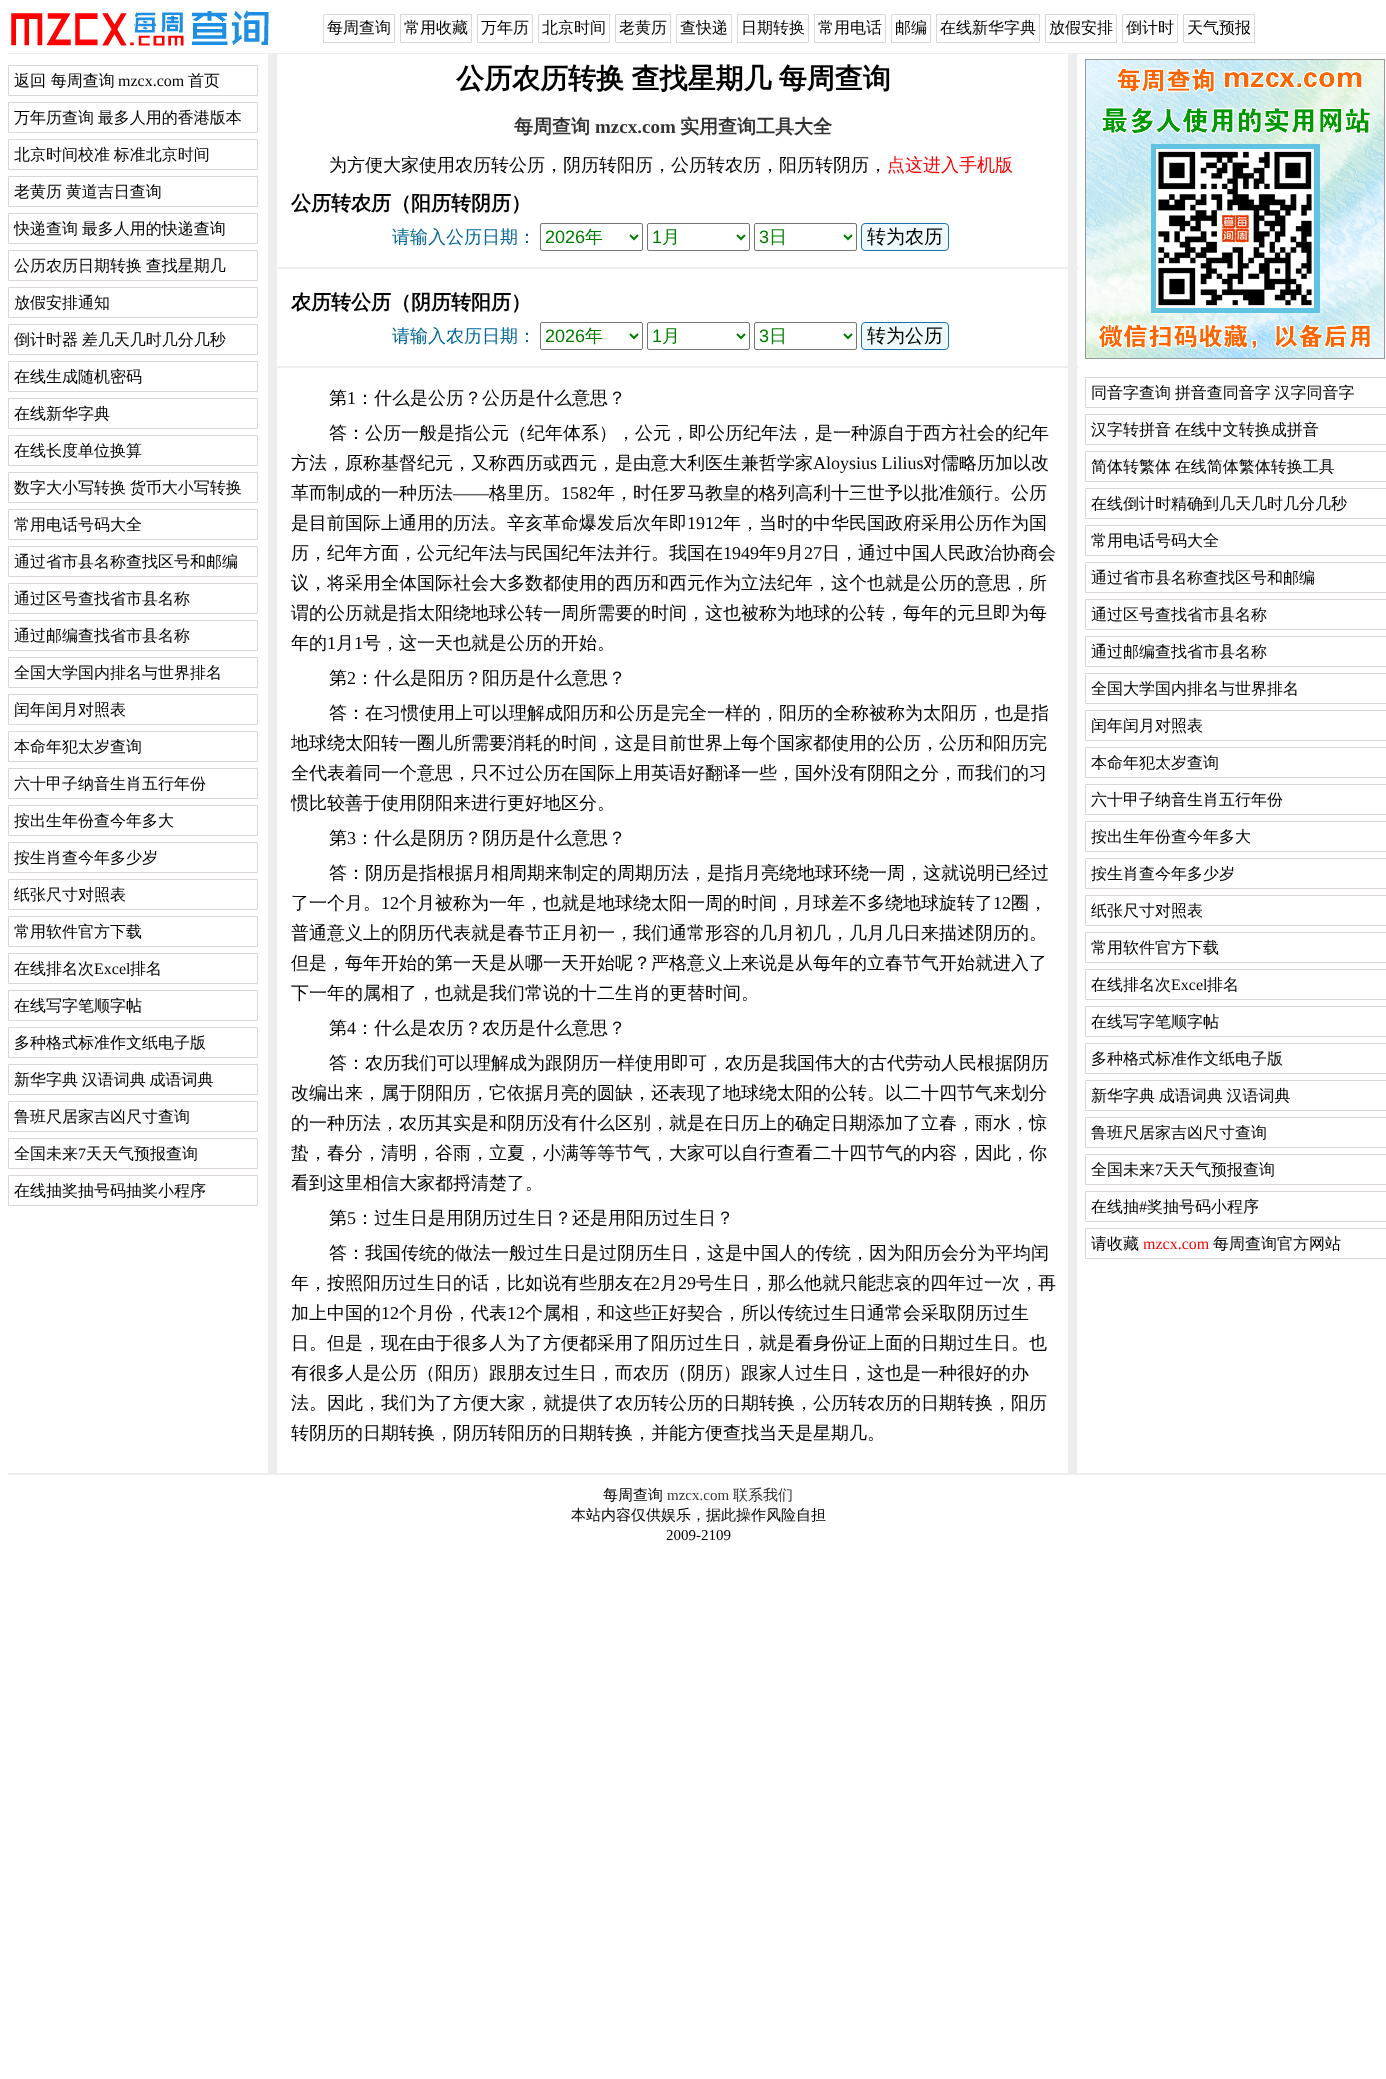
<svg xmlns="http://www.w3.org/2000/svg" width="1386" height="2079">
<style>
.a{font:500 16px WenQuanYi Zen Hei;fill:#000}
.b{font:16px Liberation Serif;fill:#000}
.c{font:bold 28px WenQuanYi Zen Hei;fill:#000}
.d{font:bold 19px WenQuanYi Zen Hei;fill:#333}
.e{font:bold 19px Liberation Serif;fill:#333}
.f{font:500 18px WenQuanYi Zen Hei;fill:#000}
.g{font:500 18px WenQuanYi Zen Hei;fill:#f00}
.h{font:bold 20px WenQuanYi Zen Hei;fill:#000}
.i{font:500 18px WenQuanYi Zen Hei;fill:#069}
.j{font:18px Liberation Sans;fill:#007d00}
.k{font:500 18px WenQuanYi Zen Hei;fill:#007d00}
.l{font:500 19px WenQuanYi Zen Hei;fill:#000}
.m{font:18px Liberation Serif;fill:#000}
.n{font:16px Liberation Serif;fill:#f00}
.o{font:500 15px WenQuanYi Zen Hei;fill:#000}
.p{font:15px Liberation Serif;fill:#333}
.q{font:500 15px WenQuanYi Zen Hei;fill:#333}
.r{font:15px Liberation Serif;fill:#000}
</style>
<rect width="100%" height="100%" fill="#fff"/>
<image href="1.png" x="11" y="10" width="258" height="36"/>
<path fill="none" stroke="#dcd7d7" d="M323.5 14.5h71v28H323.5z"/>
<path fill="none" stroke="#dcd7d7" d="M400.5 14.5h71v28H400.5z"/>
<path fill="none" stroke="#dcd7d7" d="M477.5 14.5h55v28H477.5z"/>
<path fill="none" stroke="#dcd7d7" d="M538.5 14.5h71v28H538.5z"/>
<path fill="none" stroke="#dcd7d7" d="M615.5 14.5h55v28H615.5z"/>
<path fill="none" stroke="#dcd7d7" d="M676.5 14.5h55v28H676.5z"/>
<path fill="none" stroke="#dcd7d7" d="M737.5 14.5h71v28H737.5z"/>
<path fill="none" stroke="#dcd7d7" d="M814.5 14.5h71v28H814.5z"/>
<path fill="none" stroke="#dcd7d7" d="M891.5 14.5h39v28H891.5z"/>
<path fill="none" stroke="#dcd7d7" d="M936.5 14.5h103v28H936.5z"/>
<path fill="none" stroke="#dcd7d7" d="M1045.5 14.5h71v28H1045.5z"/>
<path fill="none" stroke="#dcd7d7" d="M1122.5 14.5h55v28H1122.5z"/>
<path fill="none" stroke="#dcd7d7" d="M1183.5 14.5h71v28H1183.5z"/>
<path fill="#eee" d="M8 53h1378v1H8z"/>
<image href="2.png" x="268" y="54" width="809" height="1419"/>
<path fill="none" stroke="#dcd7d7" d="M8.5 65.5h249v30H8.5z"/>
<path fill="none" stroke="#dcd7d7" d="M8.5 102.5h249v30H8.5z"/>
<path fill="none" stroke="#dcd7d7" d="M8.5 139.5h249v30H8.5z"/>
<path fill="none" stroke="#dcd7d7" d="M8.5 176.5h249v30H8.5z"/>
<path fill="none" stroke="#dcd7d7" d="M8.5 213.5h249v30H8.5z"/>
<path fill="none" stroke="#dcd7d7" d="M8.5 250.5h249v30H8.5z"/>
<path fill="none" stroke="#dcd7d7" d="M8.5 287.5h249v30H8.5z"/>
<path fill="none" stroke="#dcd7d7" d="M8.5 324.5h249v30H8.5z"/>
<path fill="none" stroke="#dcd7d7" d="M8.5 361.5h249v30H8.5z"/>
<path fill="none" stroke="#dcd7d7" d="M8.5 398.5h249v30H8.5z"/>
<path fill="none" stroke="#dcd7d7" d="M8.5 435.5h249v30H8.5z"/>
<path fill="none" stroke="#dcd7d7" d="M8.5 472.5h249v30H8.5z"/>
<path fill="none" stroke="#dcd7d7" d="M8.5 509.5h249v30H8.5z"/>
<path fill="none" stroke="#dcd7d7" d="M8.5 546.5h249v30H8.5z"/>
<path fill="none" stroke="#dcd7d7" d="M8.5 583.5h249v30H8.5z"/>
<path fill="none" stroke="#dcd7d7" d="M8.5 620.5h249v30H8.5z"/>
<path fill="none" stroke="#dcd7d7" d="M8.5 657.5h249v30H8.5z"/>
<path fill="none" stroke="#dcd7d7" d="M8.5 694.5h249v30H8.5z"/>
<path fill="none" stroke="#dcd7d7" d="M8.5 731.5h249v30H8.5z"/>
<path fill="none" stroke="#dcd7d7" d="M8.5 768.5h249v30H8.5z"/>
<path fill="none" stroke="#dcd7d7" d="M8.5 805.5h249v30H8.5z"/>
<path fill="none" stroke="#dcd7d7" d="M8.5 842.5h249v30H8.5z"/>
<path fill="none" stroke="#dcd7d7" d="M8.5 879.5h249v30H8.5z"/>
<path fill="none" stroke="#dcd7d7" d="M8.5 916.5h249v30H8.5z"/>
<path fill="none" stroke="#dcd7d7" d="M8.5 953.5h249v30H8.5z"/>
<path fill="none" stroke="#dcd7d7" d="M8.5 990.5h249v30H8.5z"/>
<path fill="none" stroke="#dcd7d7" d="M8.5 1027.5h249v30H8.5z"/>
<path fill="none" stroke="#dcd7d7" d="M8.5 1064.5h249v30H8.5z"/>
<path fill="none" stroke="#dcd7d7" d="M8.5 1101.5h249v30H8.5z"/>
<path fill="none" stroke="#dcd7d7" d="M8.5 1138.5h249v30H8.5z"/>
<path fill="none" stroke="#dcd7d7" d="M8.5 1175.5h249v30H8.5z"/>
<rect fill="none" stroke="#767676" x="540.5" y="223.5" width="102" height="27" rx="1.5"/>
<path fill="none" stroke="#007d00" stroke-width="2" d="M630 235l4 4l4-4"/>
<rect fill="none" stroke="#767676" x="647.5" y="223.5" width="102" height="27" rx="1.5"/>
<path fill="none" stroke="#007d00" stroke-width="2" d="M737 235l4 4l4-4"/>
<rect fill="none" stroke="#767676" x="754.5" y="223.5" width="102" height="27" rx="1.5"/>
<path fill="none" stroke="#007d00" stroke-width="2" d="M844 235l4 4l4-4"/>
<rect fill="#eef9fc" stroke="#1b71aa" x="861.5" y="223.5" width="87" height="27" rx="3.5"/>
<path fill="#eee" d="M277 267h801v2H277z"/>
<rect fill="none" stroke="#767676" x="540.5" y="322.5" width="102" height="27" rx="1.5"/>
<path fill="none" stroke="#007d00" stroke-width="2" d="M630 334l4 4l4-4"/>
<rect fill="none" stroke="#767676" x="647.5" y="322.5" width="102" height="27" rx="1.5"/>
<path fill="none" stroke="#007d00" stroke-width="2" d="M737 334l4 4l4-4"/>
<rect fill="none" stroke="#767676" x="754.5" y="322.5" width="102" height="27" rx="1.5"/>
<path fill="none" stroke="#007d00" stroke-width="2" d="M844 334l4 4l4-4"/>
<rect fill="#eef9fc" stroke="#1b71aa" x="861.5" y="322.5" width="87" height="27" rx="3.5"/>
<path fill="#eee" d="M277 366h801v2H277z"/>
<image href="3.png" x="1085" y="59" width="300" height="300"/>
<path fill="none" stroke="#dcd7d7" d="M1085.5 377.5h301v30H1085.5z"/>
<path fill="none" stroke="#dcd7d7" d="M1085.5 414.5h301v30H1085.5z"/>
<path fill="none" stroke="#dcd7d7" d="M1085.5 451.5h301v30H1085.5z"/>
<path fill="none" stroke="#dcd7d7" d="M1085.5 488.5h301v30H1085.5z"/>
<path fill="none" stroke="#dcd7d7" d="M1085.5 525.5h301v30H1085.5z"/>
<path fill="none" stroke="#dcd7d7" d="M1085.5 562.5h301v30H1085.5z"/>
<path fill="none" stroke="#dcd7d7" d="M1085.5 599.5h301v30H1085.5z"/>
<path fill="none" stroke="#dcd7d7" d="M1085.5 636.5h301v30H1085.5z"/>
<path fill="none" stroke="#dcd7d7" d="M1085.5 673.5h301v30H1085.5z"/>
<path fill="none" stroke="#dcd7d7" d="M1085.5 710.5h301v30H1085.5z"/>
<path fill="none" stroke="#dcd7d7" d="M1085.5 747.5h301v30H1085.5z"/>
<path fill="none" stroke="#dcd7d7" d="M1085.5 784.5h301v30H1085.5z"/>
<path fill="none" stroke="#dcd7d7" d="M1085.5 821.5h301v30H1085.5z"/>
<path fill="none" stroke="#dcd7d7" d="M1085.5 858.5h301v30H1085.5z"/>
<path fill="none" stroke="#dcd7d7" d="M1085.5 895.5h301v30H1085.5z"/>
<path fill="none" stroke="#dcd7d7" d="M1085.5 932.5h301v30H1085.5z"/>
<path fill="none" stroke="#dcd7d7" d="M1085.5 969.5h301v30H1085.5z"/>
<path fill="none" stroke="#dcd7d7" d="M1085.5 1006.5h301v30H1085.5z"/>
<path fill="none" stroke="#dcd7d7" d="M1085.5 1043.5h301v30H1085.5z"/>
<path fill="none" stroke="#dcd7d7" d="M1085.5 1080.5h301v30H1085.5z"/>
<path fill="none" stroke="#dcd7d7" d="M1085.5 1117.5h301v30H1085.5z"/>
<path fill="none" stroke="#dcd7d7" d="M1085.5 1154.5h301v30H1085.5z"/>
<path fill="none" stroke="#dcd7d7" d="M1085.5 1191.5h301v30H1085.5z"/>
<path fill="none" stroke="#dcd7d7" d="M1085.5 1228.5h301v30H1085.5z"/>
<path fill="#eee" d="M8 1473h1378v2H8z"/>
<text class="a" x="327" y="33">每周查询</text>
<text class="a" x="404" y="33">常用收藏</text>
<text class="a" x="481" y="33">万年历</text>
<text class="a" x="542" y="33">北京时间</text>
<text class="a" x="619" y="33">老黄历</text>
<text class="a" x="680" y="33">查快递</text>
<text class="a" x="741" y="33">日期转换</text>
<text class="a" x="818" y="33">常用电话</text>
<text class="a" x="895" y="33">邮编</text>
<text class="a" x="940" y="33">在线新华字典</text>
<text class="a" x="1049" y="33">放假安排</text>
<text class="a" x="1126" y="33">倒计时</text>
<text class="a" x="1187" y="33">天气预报</text>
<text class="a" x="14" y="86">返回 每周查询</text>
<text class="b" x="118" y="86">mzcx.com</text>
<text class="a" x="188" y="86">首页</text>
<text class="a" x="14" y="123" word-spacing="-1">万年历查询 最多人用的香港版本</text>
<text class="a" x="14" y="160" word-spacing="-1">北京时间校准 标准北京时间</text>
<text class="a" x="14" y="197" word-spacing="-1">老黄历 黄道吉日查询</text>
<text class="a" x="14" y="234" word-spacing="-1">快递查询 最多人用的快递查询</text>
<text class="a" x="14" y="271" word-spacing="-1">公历农历日期转换 查找星期几</text>
<text class="a" x="14" y="308">放假安排通知</text>
<text class="a" x="14" y="345" word-spacing="-1">倒计时器 差几天几时几分几秒</text>
<text class="a" x="14" y="382">在线生成随机密码</text>
<text class="a" x="14" y="419">在线新华字典</text>
<text class="a" x="14" y="456">在线长度单位换算</text>
<text class="a" x="14" y="493" word-spacing="-1">数字大小写转换 货币大小写转换</text>
<text class="a" x="14" y="530">常用电话号码大全</text>
<text class="a" x="14" y="567">通过省市县名称查找区号和邮编</text>
<text class="a" x="14" y="604">通过区号查找省市县名称</text>
<text class="a" x="14" y="641">通过邮编查找省市县名称</text>
<text class="a" x="14" y="678">全国大学国内排名与世界排名</text>
<text class="a" x="14" y="715">闰年闰月对照表</text>
<text class="a" x="14" y="752">本命年犯太岁查询</text>
<text class="a" x="14" y="789">六十甲子纳音生肖五行年份</text>
<text class="a" x="14" y="826">按出生年份查今年多大</text>
<text class="a" x="14" y="863">按生肖查今年多少岁</text>
<text class="a" x="14" y="900">纸张尺寸对照表</text>
<text class="a" x="14" y="937">常用软件官方下载</text>
<text class="a" x="14" y="974">在线排名次</text>
<text class="b" x="94" y="974">Excel</text>
<text class="a" x="130" y="974">排名</text>
<text class="a" x="14" y="1011">在线写字笔顺字帖</text>
<text class="a" x="14" y="1048">多种格式标准作文纸电子版</text>
<text class="a" x="14" y="1085" word-spacing="-1">新华字典 汉语词典 成语词典</text>
<text class="a" x="14" y="1122">鲁班尺居家吉凶尺寸查询</text>
<text class="a" x="14" y="1159">全国未来</text>
<text class="b" x="78" y="1159">7</text>
<text class="a" x="86" y="1159">天天气预报查询</text>
<text class="a" x="14" y="1196">在线抽奖抽号码抽奖小程序</text>
<text class="c" x="456" y="88" word-spacing="-1">公历农历转换 查找星期几 每周查询</text>
<text class="d" x="514" y="133">每周查询</text>
<text class="e" x="595" y="133">mzcx.com</text>
<text class="d" x="680" y="133">实用查询工具大全</text>
<text class="f" x="329" y="171">为方便大家使用农历转公历，阴历转阳历，公历转农历，阳历转阴历，</text>
<text class="g" x="887" y="171">点这进入手机版</text>
<text class="h" x="291" y="210">公历转农历（阳历转阴历）</text>
<text class="i" x="392" y="243">请输入公历日期：</text>
<text class="j" x="545" y="243">2026</text>
<text class="k" x="585" y="243">年</text>
<text class="j" x="652" y="243">1</text>
<text class="k" x="662" y="243">月</text>
<text class="j" x="759" y="243">3</text>
<text class="k" x="769" y="243">日</text>
<text class="l" x="867" y="243">转为农历</text>
<text class="h" x="291" y="309">农历转公历（阴历转阳历）</text>
<text class="i" x="392" y="342">请输入农历日期：</text>
<text class="j" x="545" y="342">2026</text>
<text class="k" x="585" y="342">年</text>
<text class="j" x="652" y="342">1</text>
<text class="k" x="662" y="342">月</text>
<text class="j" x="759" y="342">3</text>
<text class="k" x="769" y="342">日</text>
<text class="l" x="867" y="342">转为公历</text>
<text class="f" x="329" y="404">第</text>
<text class="m" x="347" y="404">1</text>
<text class="f" x="356" y="404">：什么是公历？公历是什么意思？</text>
<text class="f" x="329" y="439">答：公历一般是指公元（纪年体系），公元，即公历纪年法，是一种源自于西方社会的纪年</text>
<text class="f" x="291" y="469">方法，原称基督纪元，又称西历或西元，是由意大利医生兼哲学家</text>
<text class="m" x="813" y="469">Aloysius Lilius</text>
<text class="f" x="923" y="469">对儒略历加以改</text>
<text class="f" x="291" y="499">革而制成的一种历法</text>
<text class="m" x="453" y="499">——</text>
<text class="f" x="489" y="499">格里历。</text>
<text class="m" x="561" y="499">1582</text>
<text class="f" x="597" y="499">年，时任罗马教皇的格列高利十三世予以批准颁行。公历</text>
<text class="f" x="291" y="529">是目前国际上通用的历法。辛亥革命爆发后次年即</text>
<text class="m" x="687" y="529">1912</text>
<text class="f" x="723" y="529">年，当时的中华民国政府采用公历作为国</text>
<text class="f" x="291" y="559">历，纪年方面，公元纪年法与民国纪年法并行。我国在</text>
<text class="m" x="723" y="559">1949</text>
<text class="f" x="759" y="559">年</text>
<text class="m" x="777" y="559">9</text>
<text class="f" x="786" y="559">月</text>
<text class="m" x="804" y="559">27</text>
<text class="f" x="822" y="559">日，通过中国人民政治协商会</text>
<text class="f" x="291" y="589">议，将采用全体国际社会大多数都使用的西历和西元作为立法纪年，这个也就是公历的意思，所</text>
<text class="f" x="291" y="619">谓的公历就是指太阳绕地球公转一周所需要的时间，这也被称为地球的公转，每年的元旦即为每</text>
<text class="f" x="291" y="649">年的</text>
<text class="m" x="327" y="649">1</text>
<text class="f" x="336" y="649">月</text>
<text class="m" x="354" y="649">1</text>
<text class="f" x="363" y="649">号，这一天也就是公历的开始。</text>
<text class="f" x="329" y="684">第</text>
<text class="m" x="347" y="684">2</text>
<text class="f" x="356" y="684">：什么是阳历？阳历是什么意思？</text>
<text class="f" x="329" y="719">答：在习惯使用上可以理解成阳历和公历是完全一样的，阳历的全称被称为太阳历，也是指</text>
<text class="f" x="291" y="749">地球绕太阳转一圈儿所需要消耗的时间，这是目前世界上每个国家都使用的公历，公历和阳历完</text>
<text class="f" x="291" y="779">全代表着同一个意思，只不过公历在国际上用英语好翻译一些，国外没有阴阳之分，而我们的习</text>
<text class="f" x="291" y="809">惯比较善于使用阴阳来进行更好地区分。</text>
<text class="f" x="329" y="844">第</text>
<text class="m" x="347" y="844">3</text>
<text class="f" x="356" y="844">：什么是阴历？阴历是什么意思？</text>
<text class="f" x="329" y="879">答：阴历是指根据月相周期来制定的周期历法，是指月亮绕地球环绕一周，这就说明已经过</text>
<text class="f" x="291" y="909">了一个月。</text>
<text class="m" x="381" y="909">12</text>
<text class="f" x="399" y="909">个月被称为一年，也就是地球绕太阳一周的时间，月球差不多绕地球旋转了</text>
<text class="m" x="993" y="909">12</text>
<text class="f" x="1011" y="909">圈，</text>
<text class="f" x="291" y="939">普通意义上的阴历代表就是春节正月初一，我们通常形容的几月初几，几月几日来描述阴历的。</text>
<text class="f" x="291" y="969">但是，每年开始的第一天是从哪一天开始呢？严格意义上来说是从每年的立春节气开始就进入了</text>
<text class="f" x="291" y="999">下一年的属相了，也就是我们常说的十二生肖的更替时间。</text>
<text class="f" x="329" y="1034">第</text>
<text class="m" x="347" y="1034">4</text>
<text class="f" x="356" y="1034">：什么是农历？农历是什么意思？</text>
<text class="f" x="329" y="1069">答：农历我们可以理解成为跟阴历一样使用即可，农历是我国伟大的古代劳动人民根据阴历</text>
<text class="f" x="291" y="1099">改编出来，属于阴阳历，它依据月亮的圆缺，还表现了地球绕太阳的公转。以二十四节气来划分</text>
<text class="f" x="291" y="1129">的一种历法，农历其实是和阴历没有什么区别，就是在日历上的确定日期添加了立春，雨水，惊</text>
<text class="f" x="291" y="1159">蛰，春分，清明，谷雨，立夏，小满等等节气，大家可以自行查看二十四节气的内容，因此，你</text>
<text class="f" x="291" y="1189">看到这里相信大家都捋清楚了。</text>
<text class="f" x="329" y="1224">第</text>
<text class="m" x="347" y="1224">5</text>
<text class="f" x="356" y="1224">：过生日是用阴历过生日？还是用阳历过生日？</text>
<text class="f" x="329" y="1259">答：我国传统的做法一般过生日是过阴历生日，这是中国人的传统，因为阳历会分为平均闰</text>
<text class="f" x="291" y="1289">年，按照阳历过生日的话，比如说有些朋友在</text>
<text class="m" x="651" y="1289">2</text>
<text class="f" x="660" y="1289">月</text>
<text class="m" x="678" y="1289">29</text>
<text class="f" x="696" y="1289">号生日，那么他就只能悲哀的四年过一次，再</text>
<text class="f" x="291" y="1319">加上中国的</text>
<text class="m" x="381" y="1319">12</text>
<text class="f" x="399" y="1319">个月份，代表</text>
<text class="m" x="507" y="1319">12</text>
<text class="f" x="525" y="1319">个属相，和这些正好契合，所以传统过生日通常会采取阴历过生</text>
<text class="f" x="291" y="1349">日。但是，现在由于很多人为了方便都采用了阳历过生日，就是看身份证上面的日期过生日。也</text>
<text class="f" x="291" y="1379">有很多人是公历（阳历）跟朋友过生日，而农历（阴历）跟家人过生日，这也是一种很好的办</text>
<text class="f" x="291" y="1409">法。因此，我们为了方便大家，就提供了农历转公历的日期转换，公历转农历的日期转换，阳历</text>
<text class="f" x="291" y="1439">转阴历的日期转换，阴历转阳历的日期转换，并能方便查找当天是星期几。</text>
<text class="a" x="1091" y="398" word-spacing="-1">同音字查询 拼音查同音字 汉字同音字</text>
<text class="a" x="1091" y="435" word-spacing="-1">汉字转拼音 在线中文转换成拼音</text>
<text class="a" x="1091" y="472" word-spacing="-1">简体转繁体 在线简体繁体转换工具</text>
<text class="a" x="1091" y="509">在线倒计时精确到几天几时几分几秒</text>
<text class="a" x="1091" y="546">常用电话号码大全</text>
<text class="a" x="1091" y="583">通过省市县名称查找区号和邮编</text>
<text class="a" x="1091" y="620">通过区号查找省市县名称</text>
<text class="a" x="1091" y="657">通过邮编查找省市县名称</text>
<text class="a" x="1091" y="694">全国大学国内排名与世界排名</text>
<text class="a" x="1091" y="731">闰年闰月对照表</text>
<text class="a" x="1091" y="768">本命年犯太岁查询</text>
<text class="a" x="1091" y="805">六十甲子纳音生肖五行年份</text>
<text class="a" x="1091" y="842">按出生年份查今年多大</text>
<text class="a" x="1091" y="879">按生肖查今年多少岁</text>
<text class="a" x="1091" y="916">纸张尺寸对照表</text>
<text class="a" x="1091" y="953">常用软件官方下载</text>
<text class="a" x="1091" y="990">在线排名次</text>
<text class="b" x="1171" y="990">Excel</text>
<text class="a" x="1207" y="990">排名</text>
<text class="a" x="1091" y="1027">在线写字笔顺字帖</text>
<text class="a" x="1091" y="1064">多种格式标准作文纸电子版</text>
<text class="a" x="1091" y="1101" word-spacing="-1">新华字典 成语词典 汉语词典</text>
<text class="a" x="1091" y="1138">鲁班尺居家吉凶尺寸查询</text>
<text class="a" x="1091" y="1175">全国未来</text>
<text class="b" x="1155" y="1175">7</text>
<text class="a" x="1163" y="1175">天天气预报查询</text>
<text class="a" x="1091" y="1212">在线抽</text>
<text class="b" x="1139" y="1212">#</text>
<text class="a" x="1147" y="1212">奖抽号码小程序</text>
<text class="a" x="1091" y="1249">请收藏</text>
<text class="n" x="1143" y="1249">mzcx.com</text>
<text class="a" x="1213" y="1249">每周查询官方网站</text>
<text class="o" x="603" y="1500">每周查询</text>
<text class="p" x="667" y="1500">mzcx.com</text>
<text class="q" x="733" y="1500">联系我们</text>
<text class="o" x="571" y="1520">本站内容仅供娱乐，据此操作风险自担</text>
<text class="r" x="666" y="1540">2009-2109</text>
</svg>
